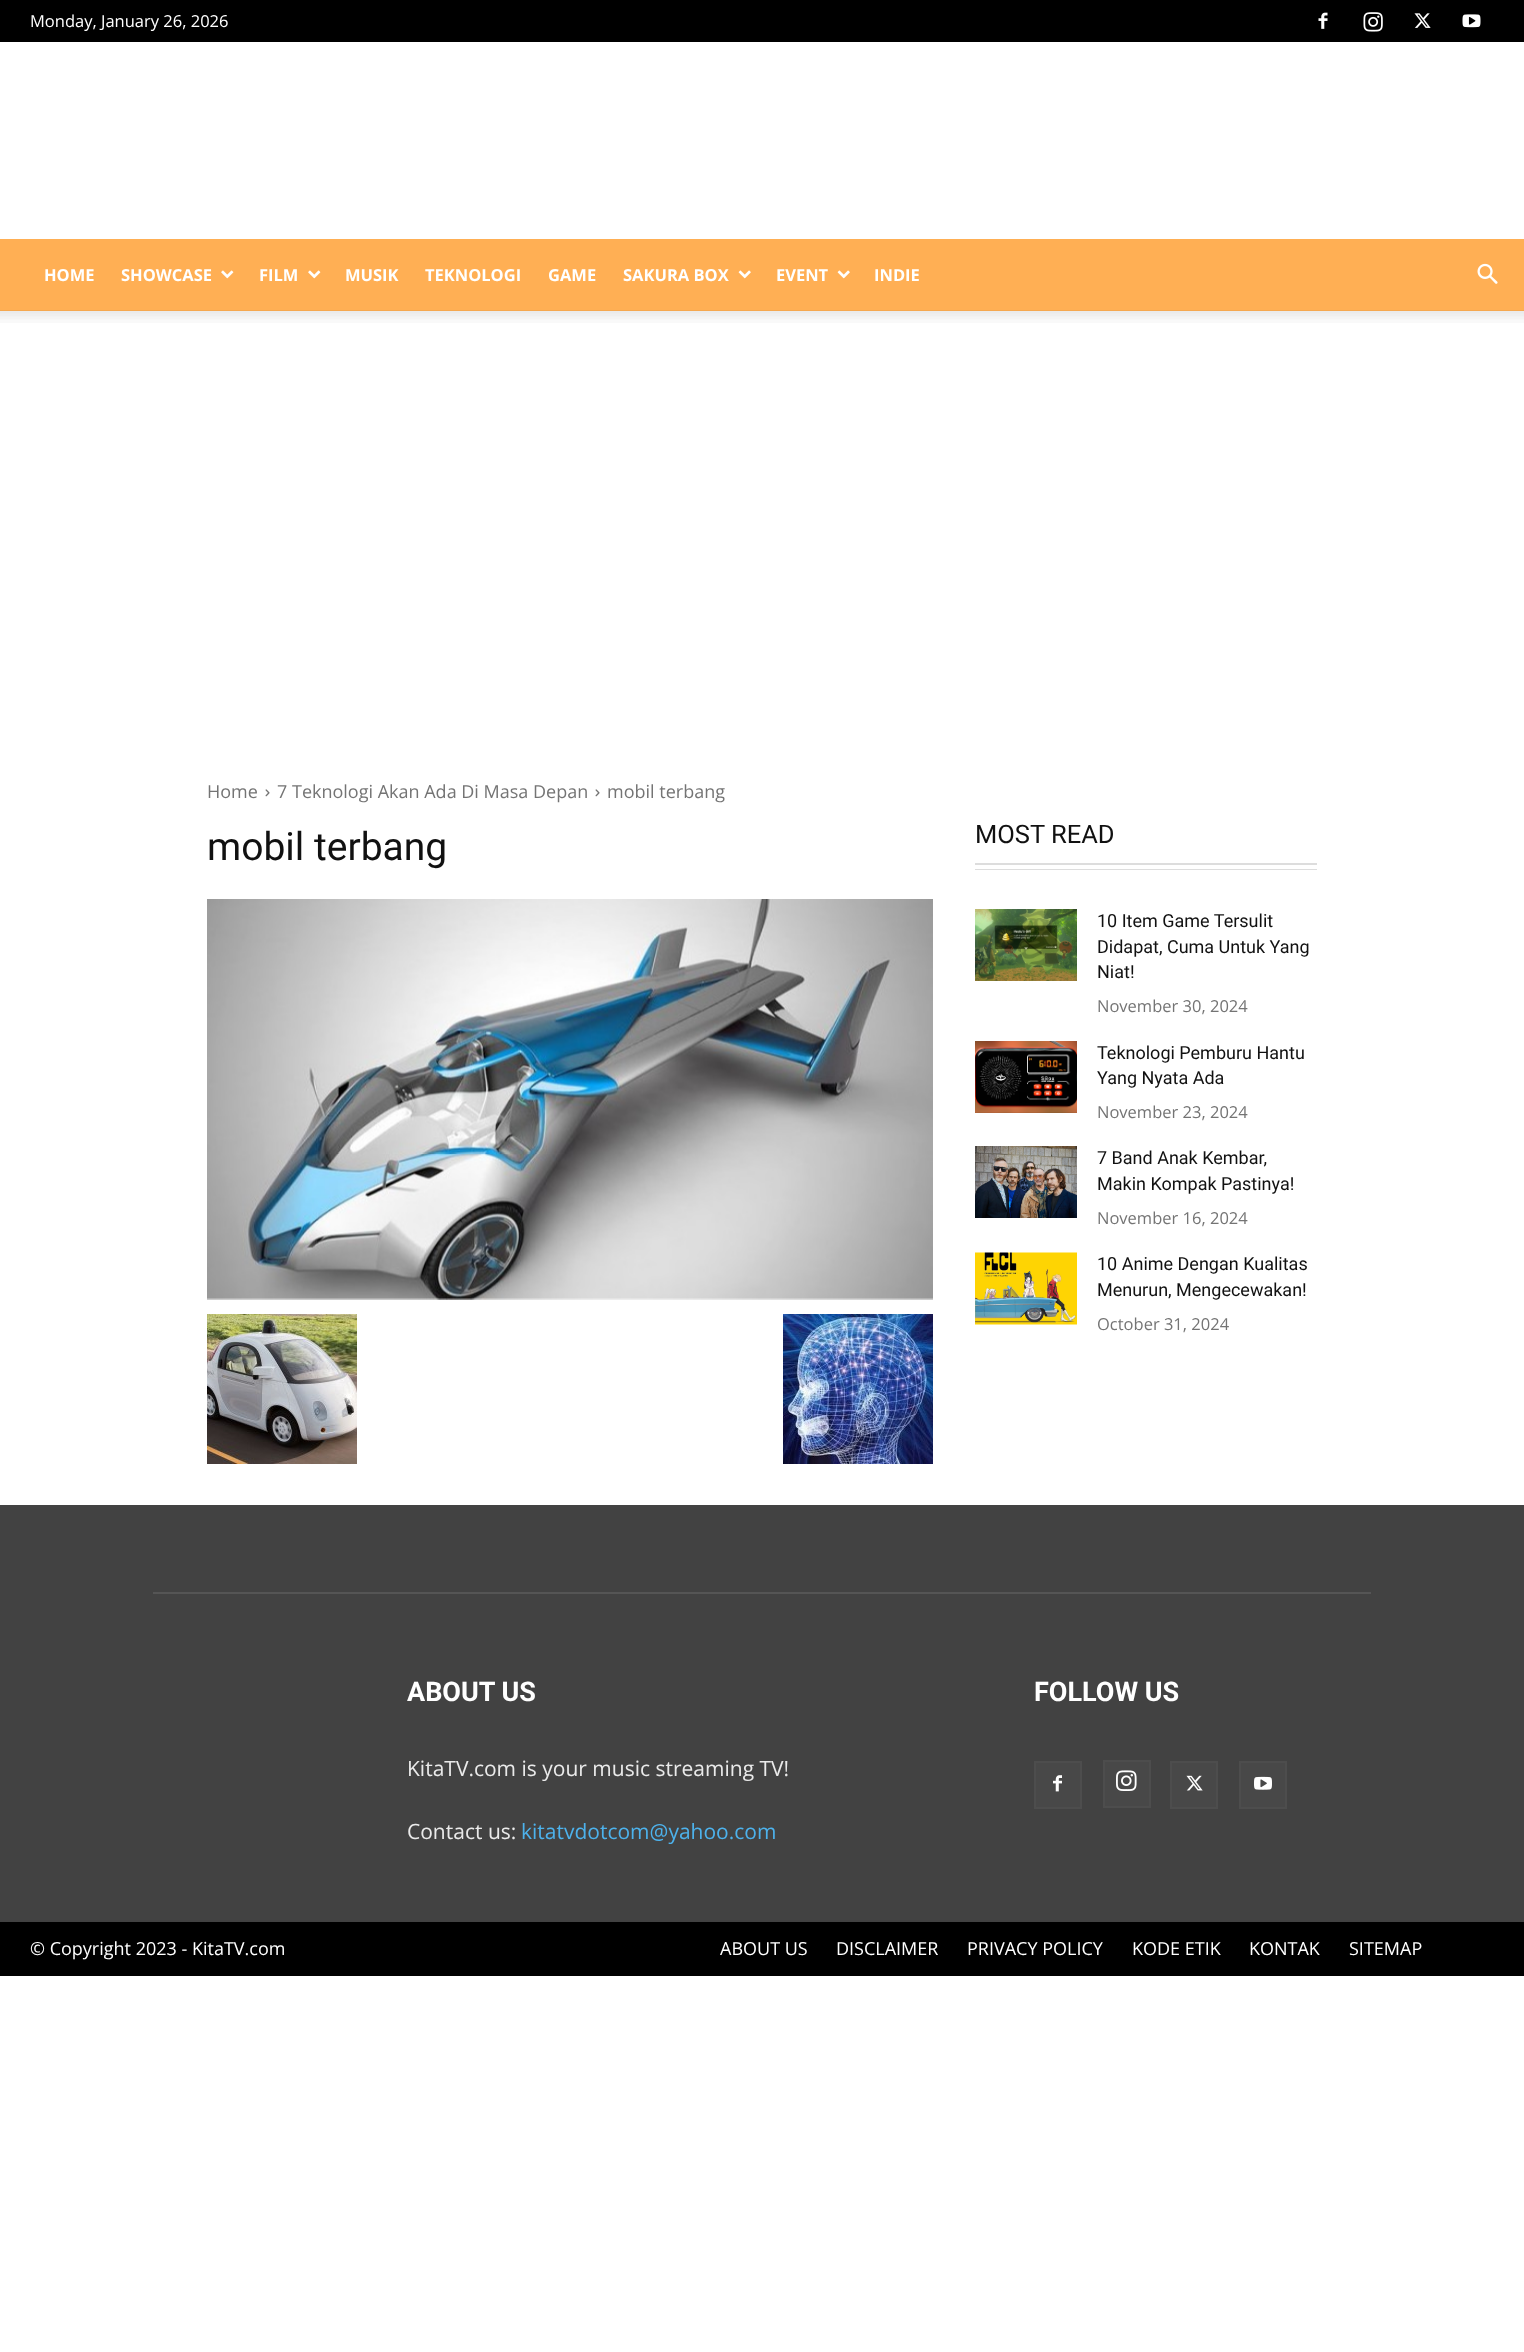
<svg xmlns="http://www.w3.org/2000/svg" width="1524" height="2352">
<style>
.a{font:16.5px Open Sans;fill:#fff}
.b{font:bold 16.5px Open Sans;fill:#fff}
.c{font:18px Open Sans;fill:#747474}
.d{font:39px Roboto;fill:#111}
.e{font:25.5px Roboto;fill:#111}
.f{font:18px Roboto;fill:#111}
.g{font:16.5px Open Sans;fill:#747474}
.h{font:bold 27px Roboto;fill:#fff}
.i{font:21px Open Sans;fill:#eaeaea}
.j{font:21px Open Sans;fill:#4db2ec}
.k{font:18px Open Sans;fill:#fff}
</style>
<rect width="100%" height="100%" fill="#fff"/>
<path fill="#000" d="M0 0h1524v42H0z"/>
<image href="1.png" x="1318" y="12" width="10" height="17"/>
<image href="2.png" x="1363" y="12" width="20" height="20"/>
<image href="3.png" x="1414" y="13" width="17" height="15"/>
<image href="4.png" x="1462" y="14" width="19" height="14"/>
<path fill="#ffaf54" d="M0 239h1524v72H0z"/>
<image href="5.png" x="221" y="270" width="13" height="9"/>
<image href="5.png" x="308" y="270" width="13" height="9"/>
<image href="6.png" x="738" y="270" width="13" height="9"/>
<image href="6.png" x="837" y="270" width="13" height="9"/>
<image href="7.png" x="1477" y="263" width="21" height="21"/>
<image href="8.png" x="0" y="310" width="1524" height="13"/>
<image href="9.png" x="265" y="789" width="5" height="8"/>
<image href="9.png" x="595" y="789" width="5" height="8"/>
<image href="10.png" x="207" y="899" width="726" height="401"/>
<image href="11.png" x="207" y="1314" width="150" height="150"/>
<image href="12.png" x="783" y="1314" width="150" height="150"/>
<path fill="#ddd" d="M975 863h342v2H975z"/>
<path fill="#ddd" d="M975 869h342v1H975z"/>
<image href="13.png" x="975" y="909" width="102" height="72"/>
<image href="14.png" x="975" y="1041" width="102" height="72"/>
<image href="15.png" x="975" y="1146" width="102" height="72"/>
<image href="16.png" x="975" y="1252" width="102" height="73"/>
<path fill="#424242" d="M0 1505h1524v417H0z"/>
<path fill="#555" d="M153 1592h1218v2H153z"/>
<path fill="#484848" d="M1036 1763h44v44H1036z"/>
<image href="17.png" x="1053" y="1775" width="9" height="17"/>
<path fill="none" stroke="#4d4d4d" stroke-width="2" d="M1035 1762h46v46H1035z"/>
<path fill="#484848" d="M1105 1762h44v44H1105z"/>
<image href="18.png" x="1116" y="1770" width="21" height="21"/>
<path fill="none" stroke="#4d4d4d" stroke-width="2" d="M1104 1761h46v46H1104z"/>
<path fill="#484848" d="M1172 1763h44v44H1172z"/>
<image href="19.png" x="1186" y="1775" width="17" height="16"/>
<path fill="none" stroke="#4d4d4d" stroke-width="2" d="M1171 1762h46v46H1171z"/>
<path fill="#484848" d="M1241 1763h44v44H1241z"/>
<image href="20.png" x="1254" y="1776" width="18" height="14"/>
<path fill="none" stroke="#4d4d4d" stroke-width="2" d="M1240 1762h46v46H1240z"/>
<path fill="#000" d="M0 1922h1524v54H0z"/>
<text class="a" x="30" y="27">Monday, January 26, 2026</text>
<text class="b" x="44" y="281">HOME</text>
<text class="b" x="121" y="281">SHOWCASE</text>
<text class="b" x="259" y="281">FILM</text>
<text class="b" x="345" y="281">MUSIK</text>
<text class="b" x="425" y="281">TEKNOLOGI</text>
<text class="b" x="548" y="281">GAME</text>
<text class="b" x="623" y="281">SAKURA BOX</text>
<text class="b" x="776" y="281">EVENT</text>
<text class="b" x="874" y="281">INDIE</text>
<text class="c" x="207" y="798">Home</text>
<text class="c" x="277" y="798">7 Teknologi Akan Ada Di Masa Depan</text>
<text class="c" x="607" y="798">mobil terbang</text>
<text class="d" x="207" y="860">mobil terbang</text>
<text class="e" x="975" y="843">MOST READ</text>
<text class="f" x="1097" y="927">10 Item Game Tersulit</text>
<text class="f" x="1097" y="953">Didapat, Cuma Untuk Yang</text>
<text class="f" x="1097" y="978">Niat!</text>
<text class="g" x="1097" y="1012">November 30, 2024</text>
<text class="f" x="1097" y="1059">Teknologi Pemburu Hantu</text>
<text class="f" x="1097" y="1084">Yang Nyata Ada</text>
<text class="g" x="1097" y="1118">November 23, 2024</text>
<text class="f" x="1097" y="1164">7 Band Anak Kembar,</text>
<text class="f" x="1097" y="1190">Makin Kompak Pastinya!</text>
<text class="g" x="1097" y="1224">November 16, 2024</text>
<text class="f" x="1097" y="1270">10 Anime Dengan Kualitas</text>
<text class="f" x="1097" y="1296">Menurun, Mengecewakan!</text>
<text class="g" x="1097" y="1330">October 31, 2024</text>
<text class="h" x="407" y="1701">ABOUT US</text>
<text class="i" x="407" y="1776">KitaTV.com is your music streaming TV!</text>
<text class="i" x="407" y="1839">Contact us:</text>
<text class="j" x="521" y="1839">kitatvdotcom@yahoo.com</text>
<text class="h" x="1034" y="1701">FOLLOW US</text>
<text class="k" x="30" y="1955">© Copyright 2023 - KitaTV.com</text>
<text class="k" x="720" y="1955">ABOUT US</text>
<text class="k" x="836" y="1955">DISCLAIMER</text>
<text class="k" x="967" y="1955">PRIVACY POLICY</text>
<text class="k" x="1132" y="1955">KODE ETIK</text>
<text class="k" x="1249" y="1955">KONTAK</text>
<text class="k" x="1349" y="1955">SITEMAP</text>
</svg>
